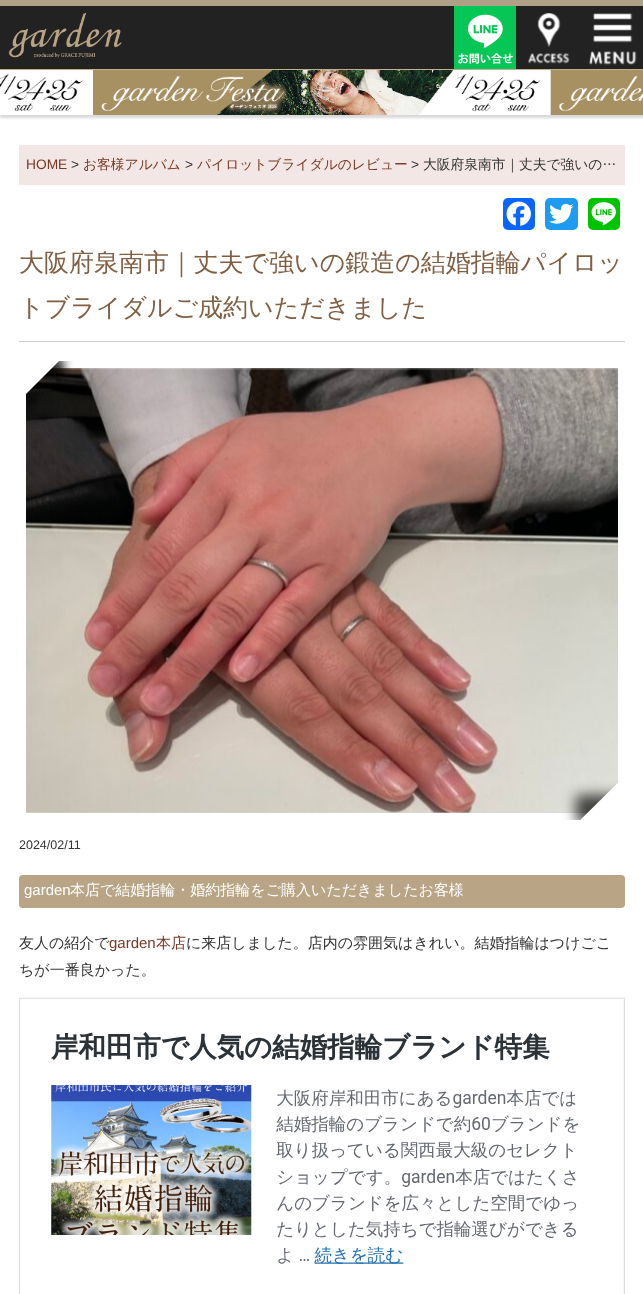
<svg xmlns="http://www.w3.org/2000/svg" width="643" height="1294">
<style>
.a{font:13.75px Liberation Sans;fill:#773824}
.b{font:13.75px Liberation Sans;fill:#333}
.c{font:500 13.75px WenQuanYi Zen Hei;fill:#773824}
.d{font:500 13.75px WenQuanYi Zen Hei;fill:#333}
.e{font:500 25px WenQuanYi Zen Hei;fill:#805f43}
.f{font:12.5px Liberation Sans;fill:#333}
.g{font:15px Liberation Sans;fill:#fff}
.h{font:500 15px WenQuanYi Zen Hei;fill:#fff}
.i{font:500 15px WenQuanYi Zen Hei;fill:#333}
.j{font:15px Liberation Sans;fill:#773824}
.k{font:500 15px WenQuanYi Zen Hei;fill:#773824}
</style>
<defs>
<clipPath id="clip1"><path d="M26 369h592v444H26z"/></clipPath>
<clipPath id="clip2"><path d="M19 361h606v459H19z"/></clipPath>
<clipPath id="clip3"><path d="M19 361h606v459H19z"/></clipPath>
</defs>
<rect width="100%" height="100%" fill="#fff"/>
<path fill="#00000026" filter="blur(1px)" d="M0 3h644v115H0z"/>
<path fill="#222" d="M0 6h643v63H0z"/>
<path fill="#afa187" d="M0 0h643v6H0z"/>
<image href="1.png" x="8" y="12" width="114" height="46"/>
<image href="2.png" x="454" y="6" width="62" height="63"/>
<image href="3.png" x="528" y="13" width="42" height="51"/>
<image href="4.png" x="589" y="13" width="48" height="52"/>
<path fill="#c0b08e" d="M0 69h643v1H0z"/>
<image href="5.png" x="0" y="70" width="643" height="45"/>
<path fill="#f2e7e4" d="M19 145h606v40H19z"/>
<rect fill="#0866ff" x="503" y="198" width="32" height="32" rx="5"/>
<image href="6.png" x="506" y="201" width="25" height="25"/>
<rect fill="#1d9bf0" x="545" y="198" width="33" height="32" rx="5"/>
<image href="7.png" x="549" y="203" width="25" height="21"/>
<rect fill="#00c300" x="588" y="198" width="32" height="32" rx="5"/>
<image href="8.png" x="591" y="202" width="25" height="24"/>
<path fill="#ccc" d="M19 341h606v1H19z"/>
<g clip-path="url(#clip1)">
<path fill="#0000004d" filter="blur(5px)" d="M26 369h592v444H26z"/>
</g>
<image href="9.png" x="26" y="368" width="592" height="445"/>
<g clip-path="url(#clip2)">
<path fill="#000000cc" filter="blur(5px)" d="M-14 358h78v23H-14z"/>
</g>
<g clip-path="url(#clip3)">
<path fill="#fff" d="M-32 376l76-76l38 38l-76 76z"/>
</g>
<g clip-path="url(#clip2)">
<path fill="#000000b3" filter="blur(6.5px)" d="M576 795h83v29H576z"/>
</g>
<g clip-path="url(#clip3)">
<path fill="#fff" d="M560 840l77-76l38 38l-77 76z"/>
</g>
<rect fill="#b9a585" x="19" y="875" width="606" height="33" rx="4"/>
<image href="10.png" x="19" y="997" width="606" height="297"/>
<text class="a" x="26" y="169">HOME</text>
<text class="b" x="71" y="169">&gt;</text>
<text class="c" x="83" y="169">お客様アルバム</text>
<text class="b" x="185" y="169">&gt;</text>
<text class="c" x="197" y="169">パイロットブライダルのレビュー</text>
<text class="b" x="411" y="169">&gt;</text>
<text class="d" x="423" y="169">大阪府泉南市｜丈夫で強いの…</text>
<text class="e" x="19" y="271">大阪府泉南市｜丈夫で強いの鍛造の結婚指輪パイロッ</text>
<text class="e" x="19" y="316">トブライダルご成約いただきました</text>
<text class="f" x="19" y="849">2024/02/11</text>
<text class="g" x="24" y="895">garden</text>
<text class="h" x="70" y="895">本店で結婚指輪・婚約指輪をご購入いただきましたお客様</text>
<text class="i" x="19" y="948">友人の紹介で</text>
<text class="j" x="109" y="948">garden</text>
<text class="k" x="156" y="948">本店</text>
<text class="i" x="186" y="948">に来店しました。店内の雰囲気はきれい。結婚指輪はつけごこ</text>
<text class="i" x="19" y="975">ちが一番良かった。</text>
</svg>
